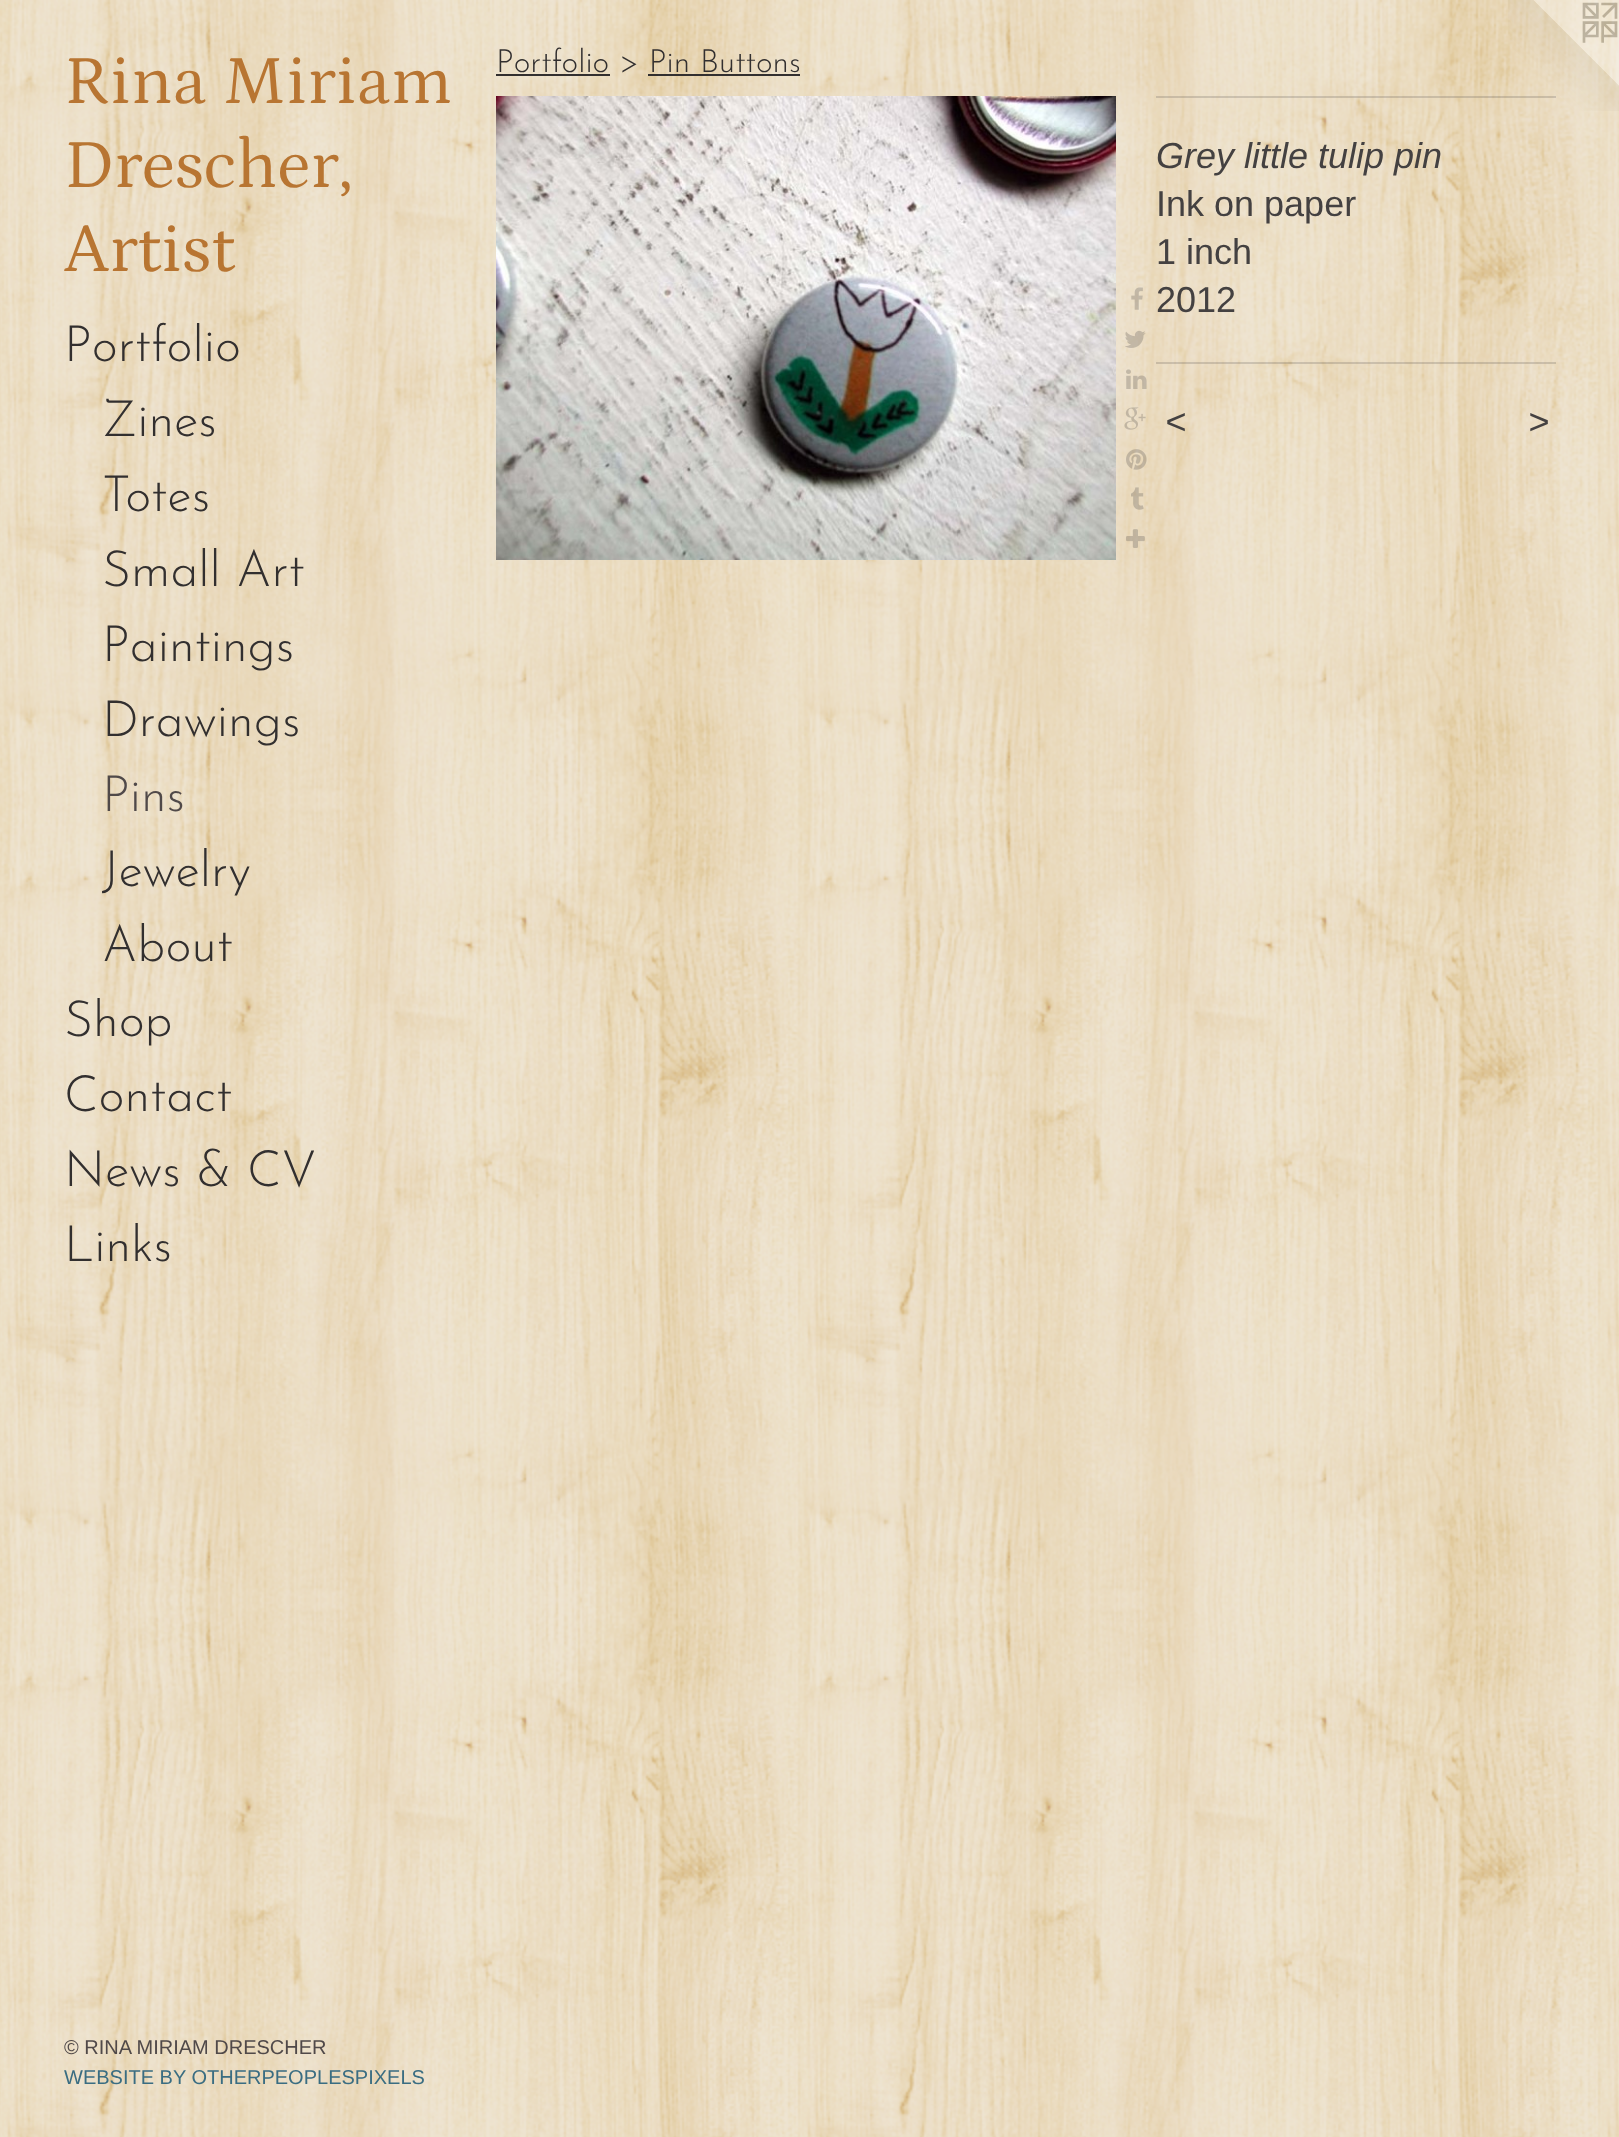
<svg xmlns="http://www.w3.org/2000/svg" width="1619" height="2137">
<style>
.a{font:70px Petrona;fill:#b87532}
.b{font:100 50px Josefin Sans;fill:#322f2f}
.c{font:100 50px Josefin Sans;fill:#504949}
.d{font:20px Liberation Sans;fill:#504949}
.e{font:20px Liberation Sans;fill:#3a6d82}
.f{font:100 32px Josefin Sans;fill:#322f2f}
.g{font:italic 36px Liberation Sans;fill:#444141}
.h{font:36px Liberation Sans;fill:#444141}
.i{font:italic 36px Liberation Sans;letter-spacing:2px;fill:#444141}
</style>
<defs>
<clipPath id="clip1"><path d="M102 836h362v76H102z"/></clipPath>
</defs>
<rect width="100%" height="100%" fill="#fff"/>
<image href="1.png" x="0" y="0" width="1619" height="2137"/>
<path fill="#322f2f" d="M496 74h114v2H496z"/>
<path fill="#322f2f" d="M648 74h152v2H648z"/>
<image href="2.png" x="496" y="96" width="620" height="464"/>
<image href="3.png" x="1131" y="287" width="12" height="23"/>
<image href="4.png" x="1125" y="330" width="21" height="18"/>
<image href="5.png" x="1126" y="369" width="21" height="20"/>
<image href="6.png" x="1124" y="407" width="22" height="23"/>
<image href="7.png" x="1126" y="449" width="21" height="21"/>
<image href="8.png" x="1131" y="487" width="13" height="23"/>
<image href="9.png" x="1126" y="529" width="19" height="19"/>
<image href="10.png" x="1508" y="0" width="111" height="111"/>
<path fill="#44414133" d="M1156 96h400v2H1156z"/>
<path fill="#44414133" d="M1156 362h400v2H1156z"/>
<text class="a" x="64" y="103">Rina Miriam</text>
<text class="a" x="64" y="187">Drescher,</text>
<text class="a" x="64" y="271">Artist</text>
<text class="b" x="64" y="361">Portfolio</text>
<text class="b" x="102" y="436">Zines</text>
<text class="b" x="102" y="511">Totes</text>
<text class="b" x="102" y="586">Small Art</text>
<text class="b" x="102" y="661">Paintings</text>
<text class="b" x="102" y="736">Drawings</text>
<text class="c" x="102" y="811">Pins</text>
<g clip-path="url(#clip1)">
<text class="b" x="102" y="886">Jewelry</text>
</g>
<text class="b" x="102" y="961">About</text>
<text class="b" x="64" y="1036">Shop</text>
<text class="b" x="64" y="1111">Contact</text>
<text class="b" x="64" y="1186">News &amp; CV</text>
<text class="b" x="64" y="1261">Links</text>
<text class="d" x="64" y="2054">© RINA MIRIAM DRESCHER</text>
<text class="e" x="64" y="2084">WEBSITE BY OTHERPEOPLESPIXELS</text>
<text class="f" x="496" y="72">Portfolio &gt; Pin Buttons</text>
<text class="g" x="1156" y="168">Grey little tulip pin</text>
<text class="h" x="1156" y="216">Ink on paper</text>
<text class="h" x="1156" y="264">1 inch</text>
<text class="h" x="1156" y="312">2012</text>
<text class="i" x="1165" y="434">&lt;</text>
<text class="i" x="1528" y="434">&gt;</text>
</svg>
